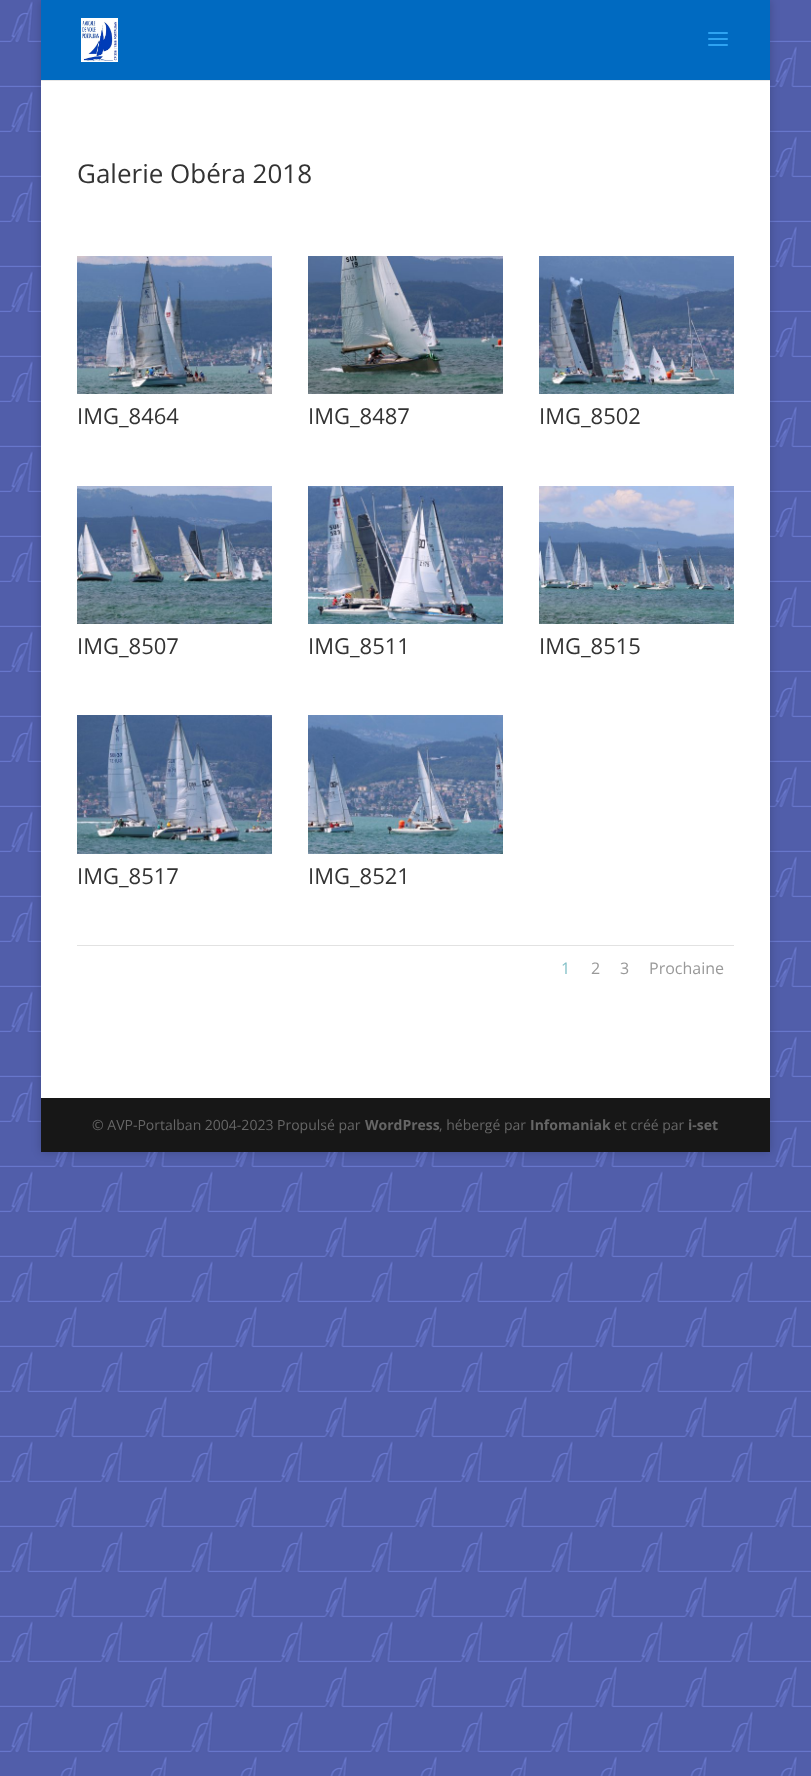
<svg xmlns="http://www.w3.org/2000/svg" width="811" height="1776">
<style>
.a{font:26px Open Sans;fill:#333}
.b{font:22px Open Sans;fill:#333}
.c{font:16px Open Sans;fill:#82c0c7}
.d{font:16px Open Sans;fill:#999}
.e{font:14px Open Sans;fill:#666}
.f{font:bold 14px Open Sans;fill:#666}
</style>
<rect width="100%" height="100%" fill="#fff"/>
<image href="1.png" x="0" y="0" width="811" height="1776"/>
<path fill="#00000033" filter="blur(5px)" d="M41 0h729v1152H41z"/>
<path fill="#e6e6e6" d="M41 80h729v1H41z"/>
<path fill="#006ac1" d="M41 0h729v80H41z"/>
<image href="2.png" x="81" y="18" width="37" height="44"/>
<image href="3.png" x="708" y="32" width="20" height="14"/>
<path fill="#fff" d="M41 81h729v1017H41z"/>
<image href="4.png" x="77" y="256" width="195" height="138"/>
<image href="5.png" x="308" y="256" width="195" height="138"/>
<image href="6.png" x="539" y="256" width="195" height="138"/>
<image href="7.png" x="77" y="486" width="195" height="138"/>
<image href="8.png" x="308" y="486" width="195" height="138"/>
<image href="9.png" x="539" y="486" width="195" height="138"/>
<image href="10.png" x="77" y="715" width="195" height="139"/>
<image href="11.png" x="308" y="715" width="195" height="139"/>
<path fill="#e2e2e2" d="M77 945h657v1H77z"/>
<path fill="#171717" d="M41 1098h729v54H41z"/>
<text class="a" x="77" y="183">Galerie Obéra 2018</text>
<text class="b" x="77" y="424">IMG_8464</text>
<text class="b" x="308" y="424">IMG_8487</text>
<text class="b" x="539" y="424">IMG_8502</text>
<text class="b" x="77" y="654">IMG_8507</text>
<text class="b" x="308" y="654">IMG_8511</text>
<text class="b" x="539" y="654">IMG_8515</text>
<text class="b" x="77" y="884">IMG_8517</text>
<text class="b" x="308" y="884">IMG_8521</text>
<text class="c" x="561" y="974">1</text>
<text class="d" x="591" y="974">2</text>
<text class="d" x="620" y="974">3</text>
<text class="d" x="649" y="974">Prochaine</text>
<text class="e" x="92" y="1130">© AVP-Portalban 2004-2023 Propulsé par</text>
<text class="f" x="365" y="1130">WordPress</text>
<text class="e" x="439" y="1130">, hébergé par</text>
<text class="f" x="530" y="1130">Infomaniak</text>
<text class="e" x="614" y="1130">et créé par</text>
<text class="f" x="688" y="1130">i-set</text>
</svg>
